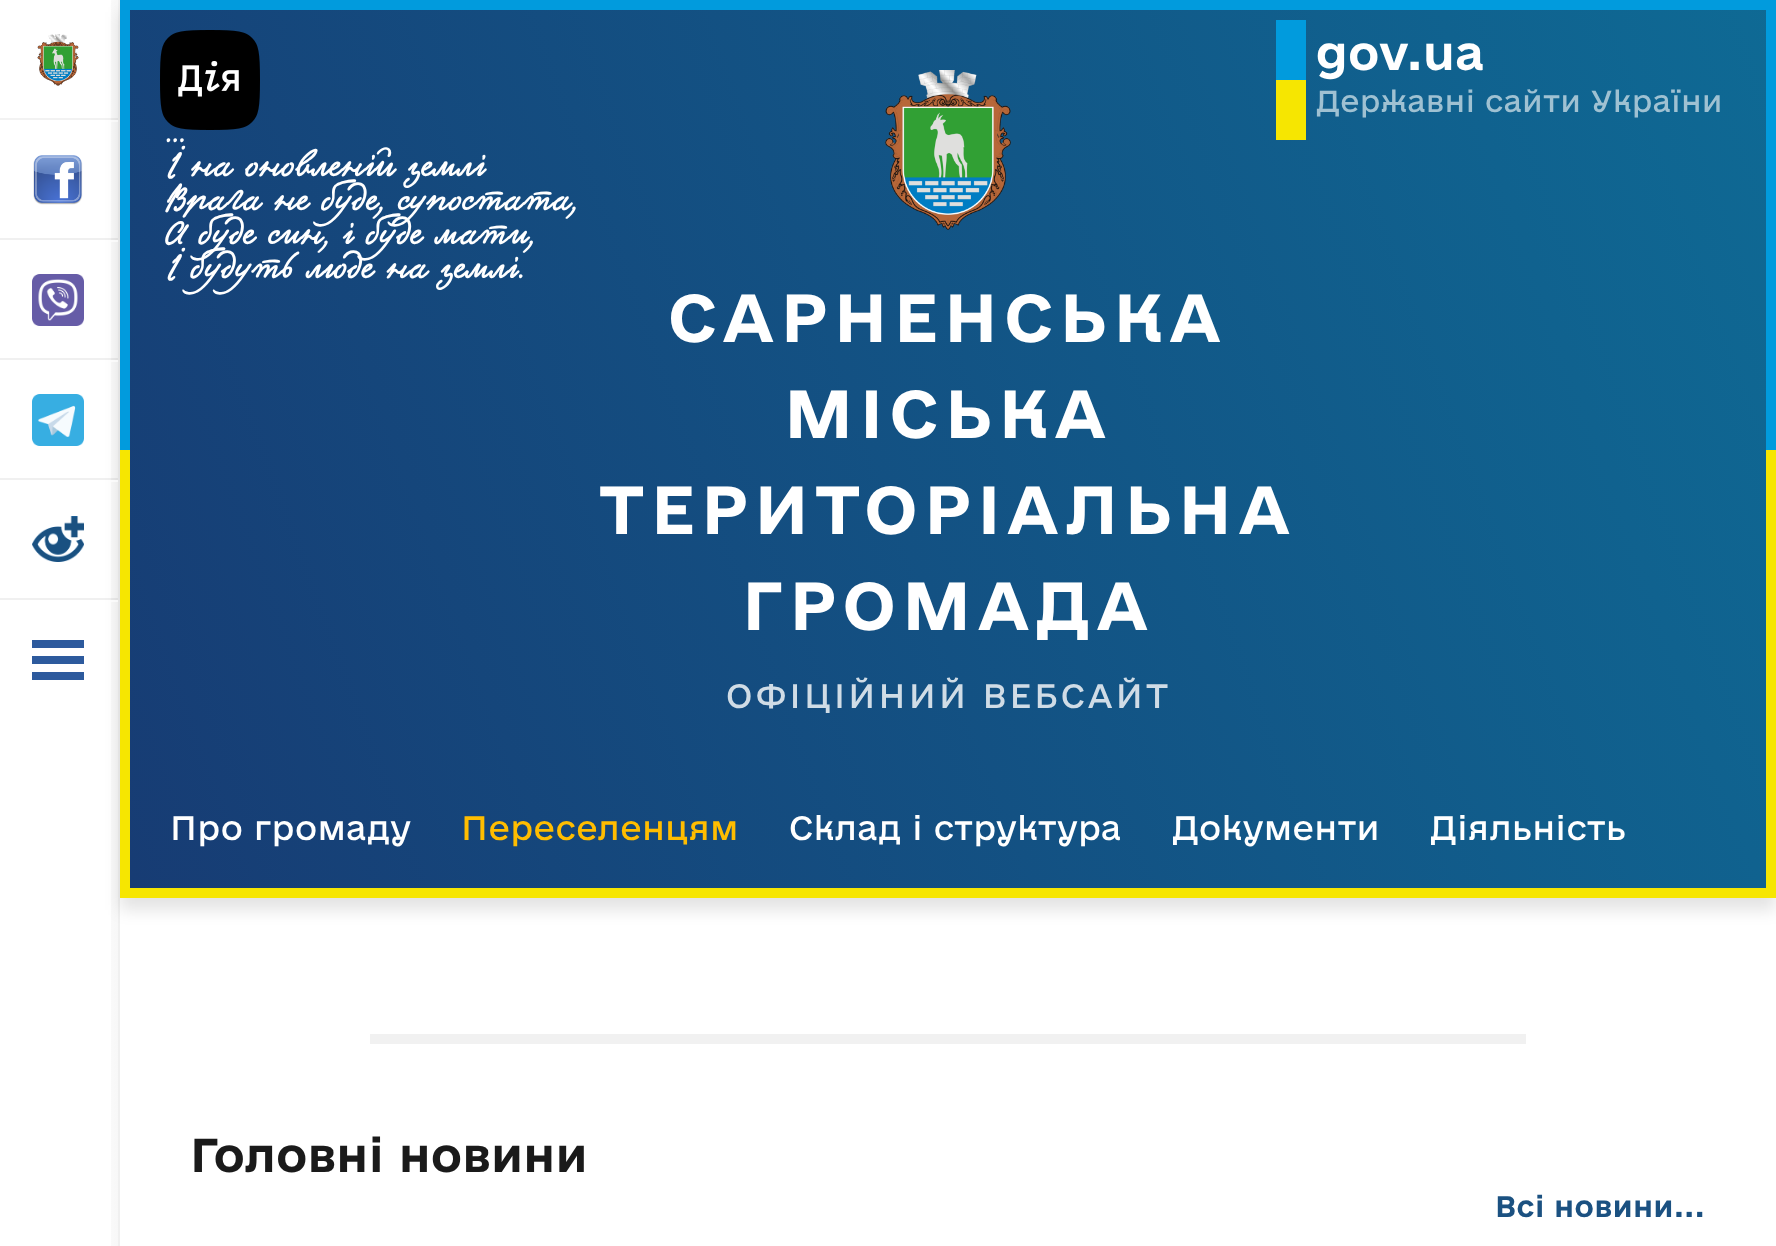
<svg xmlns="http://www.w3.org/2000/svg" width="1776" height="1246">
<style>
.a{font:bold 44.75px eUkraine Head;letter-spacing:0.6px;fill:#fff}
.b{font:28.75px eUkraine Head;letter-spacing:0.6px;fill:#9fc1d2}
.c{font:bold 35.25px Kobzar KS;letter-spacing:0.6px;fill:#fff}
.d{font:bold 64px eUkraine Head;letter-spacing:6.4px;fill:#fff}
.e{font:32px eUkraine Head;letter-spacing:3.25px;fill:#d0dce6}
.f{font:32px eUkraine Head;letter-spacing:0.6px;fill:#fff}
.g{font:32px eUkraine Head;letter-spacing:0.6px;fill:#ffbd00}
.h{font:bold 44.75px eUkraine Head;letter-spacing:0.6px;fill:#1a1a1a}
.i{font:bold 28px eUkraine Head;letter-spacing:0.6px;fill:#1b5181}
</style>
<defs>
<linearGradient id="g1" gradientUnits="userSpaceOnUse" x1="92" y1="623" x2="118" y2="623"><stop offset="0" stop-color="#000" stop-opacity="0"/><stop offset="1" stop-color="#000" stop-opacity="0.03"/></linearGradient>
<linearGradient id="g2" gradientUnits="userSpaceOnUse" x1="-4.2" y1="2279" x2="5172" y2="375"><stop offset="0.03" stop-color="#19316c"/><stop offset="0.98" stop-color="#01b3c9"/><stop offset="0.98" stop-color="#19316c"/></linearGradient>
</defs>
<rect width="100%" height="100%" fill="#fff"/>
<path fill="#0000001c" filter="blur(8px)" d="M120 12h1656v898H120z"/>
<path fill="url(#g1)" d="M111 0h7v1246H111z"/>
<path fill="#0000000f" d="M118 0h2v1246H118z"/>
<path fill="#ffffff7a" d="M111 120h7v2H111z"/>
<path fill="#0000000d" d="M0 118h118v2H0z"/>
<image href="1.png" x="37" y="34" width="42" height="52"/>
<path fill="#ffffff99" d="M111 240h7v2H111z"/>
<path fill="#0000000f" d="M0 238h118v2H0z"/>
<image href="2.png" x="33" y="155" width="50" height="50"/>
<path fill="#ffffff99" d="M111 360h7v2H111z"/>
<path fill="#0000000f" d="M0 358h118v2H0z"/>
<image href="3.png" x="32" y="274" width="52" height="52"/>
<path fill="#ffffff99" d="M111 480h7v2H111z"/>
<path fill="#0000000f" d="M0 478h118v2H0z"/>
<image href="4.png" x="32" y="394" width="52" height="52"/>
<path fill="#ffffff99" d="M111 600h7v2H111z"/>
<path fill="#0000000f" d="M0 598h118v2H0z"/>
<image href="5.png" x="32" y="516" width="52" height="46"/>
<path fill="#2d5a9d" d="M32 640h52v8H32z"/>
<path fill="#2d5a9d" d="M32 656h52v8H32z"/>
<path fill="#2d5a9d" d="M32 672h52v8H32z"/>
<path fill="#f6e601" d="M120 450h1656v448H120z"/>
<path fill="#019bdd" d="M120 0h1656v450H120z"/>
<path fill="url(#g2)" d="M130 10h1636v878H130z"/>
<image href="6.png" x="160" y="30" width="100" height="100"/>
<path fill="#019bdd" d="M1276 20h30v60H1276z"/>
<path fill="#f6e601" d="M1276 80h30v60H1276z"/>
<image href="7.png" x="885" y="70" width="126" height="160"/>
<path fill="#f1f1f1" d="M370 1034h1156v10H370z"/>
<text class="a" x="1316" y="70">gov.ua</text>
<text class="b" x="1316" y="112">Державні сайти України</text>
<text class="c" x="166" y="142">...</text>
<text class="c" x="166" y="176">І на оновленій землі</text>
<text class="c" x="166" y="210">Врага не буде, супостата,</text>
<text class="c" x="166" y="244">А буде син, і буде мати,</text>
<text class="c" x="166" y="278">І будуть люде на землі.</text>
<text class="d" x="668" y="342">САРНЕНСЬКА</text>
<text class="d" x="784" y="438">МІСЬКА</text>
<text class="d" x="599" y="534">ТЕРИТОРІАЛЬНА</text>
<text class="d" x="742" y="630">ГРОМАДА</text>
<text class="e" x="726" y="708">ОФІЦІЙНИЙ ВЕБСАЙТ</text>
<text class="f" x="170" y="840">Про громаду</text>
<text class="g" x="461" y="840">Переселенцям</text>
<text class="f" x="789" y="840">Склад і структура</text>
<text class="f" x="1172" y="840">Документи</text>
<text class="f" x="1430" y="840">Діяльність</text>
<text class="h" x="190" y="1172">Головні новини</text>
<text class="i" x="1495" y="1217">Всі новини...</text>
</svg>
